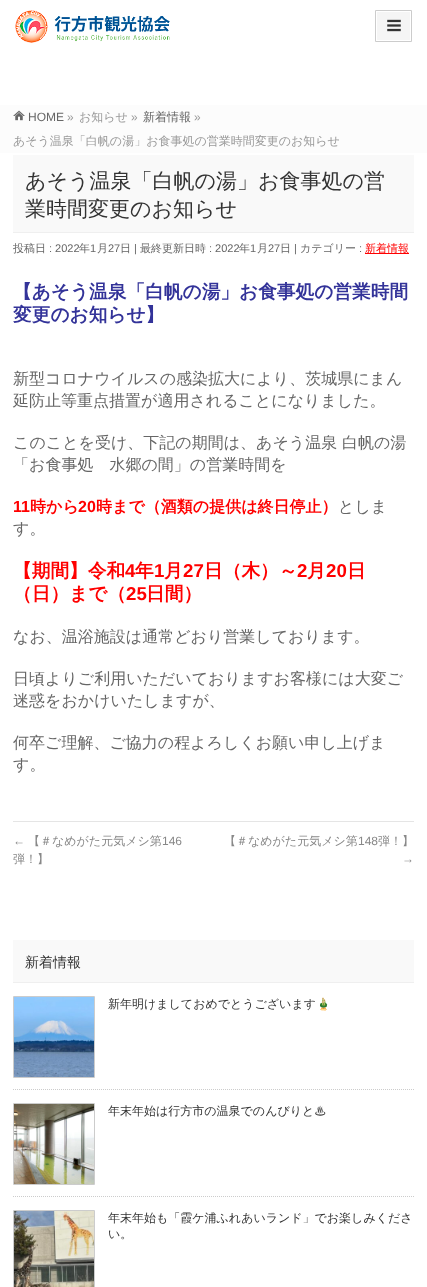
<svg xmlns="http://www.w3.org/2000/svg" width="427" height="1287">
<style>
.a{font:12px Liberation Sans;fill:#666}
.b{font:12px Liberation Sans;fill:#999}
.c{font:500 12px WenQuanYi Zen Hei;fill:#999}
.d{font:500 12px WenQuanYi Zen Hei;fill:#666}
.e{font:500 21px WenQuanYi Zen Hei;fill:#333}
.f{font:500 11px WenQuanYi Zen Hei;fill:#666}
.g{font:11px Liberation Sans;fill:#666}
.h{font:500 11px WenQuanYi Zen Hei;fill:#f00}
.i{font:bold 18.7px WenQuanYi Zen Hei;fill:#339}
.j{font:500 16px WenQuanYi Zen Hei;fill:#666}
.k{font:bold 16px Liberation Sans;fill:#f00}
.l{font:bold 16px WenQuanYi Zen Hei;fill:#f00}
.m{font:bold 18.7px WenQuanYi Zen Hei;fill:#f00}
.n{font:bold 18.7px Liberation Sans;fill:#f00}
.o{font:12px Liberation Sans;fill:#888}
.p{font:500 12px WenQuanYi Zen Hei;fill:#888}
.q{font:500 14px WenQuanYi Zen Hei;fill:#333}
.r{font:500 12px WenQuanYi Zen Hei;fill:#333}
.s{font:12px Noto Color Emoji;fill:#333}
</style>
<rect width="100%" height="100%" fill="#fff"/>
<image href="1.png" x="15" y="10" width="155" height="33"/>
<path fill="#f5f5f5" d="M377 12h33v28H377z"/>
<path fill="none" stroke="#ccc" d="M375.5 10.5h36v31H375.5z"/>
<image href="2.png" x="387" y="19" width="14" height="13"/>
<path fill="#fcfcfc" d="M0 105h427v48H0z"/>
<image href="3.png" x="13" y="110" width="12" height="11"/>
<path fill="#f9f9f9" d="M13 155h401v77H13z"/>
<path fill="#efefef" d="M13 232h401v1H13z"/>
<path fill="#f00" d="M365 253h44v1H365z"/>
<path fill="#e5e5e5" d="M13 821h401v1H13z"/>
<path fill="#f9f9f9" d="M13 940h401v42H13z"/>
<path fill="#efefef" d="M13 982h401v1H13z"/>
<path fill="none" stroke="#ccc" stroke-dasharray="1 1" d="M13 1089.5h401"/>
<path fill="none" stroke="#ccc" d="M13.5 996.5h81v81H13.5z"/>
<image href="4.png" x="14" y="997" width="80" height="80"/>
<path fill="none" stroke="#ccc" stroke-dasharray="1 1" d="M13 1196.5h401"/>
<path fill="none" stroke="#ccc" d="M13.5 1103.5h81v81H13.5z"/>
<image href="5.png" x="14" y="1104" width="80" height="80"/>
<path fill="none" stroke="#ccc" d="M13.5 1210.5h81v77H13.5z"/>
<image href="6.png" x="14" y="1211" width="80" height="76"/>
<text class="a" x="28" y="121">HOME</text>
<text class="b" x="67" y="121">»</text>
<text class="c" x="79" y="121">お知らせ</text>
<text class="b" x="131" y="121">»</text>
<text class="d" x="143" y="121">新着情報</text>
<text class="b" x="194" y="121">»</text>
<text class="c" x="13" y="145">あそう温泉「白帆の湯」お食事処の営業時間変更のお知らせ</text>
<text class="e" x="25" y="188">あそう温泉「白帆の湯」お食事処の営</text>
<text class="e" x="25" y="216">業時間変更のお知らせ</text>
<text class="f" x="13" y="252">投稿日</text>
<text class="g" x="49" y="252">: 2022</text>
<text class="f" x="79" y="252">年</text>
<text class="g" x="90" y="252">1</text>
<text class="f" x="97" y="252">月</text>
<text class="g" x="108" y="252">27</text>
<text class="f" x="120" y="252">日</text>
<text class="g" x="134" y="252">|</text>
<text class="f" x="140" y="252">最終更新日時</text>
<text class="g" x="209" y="252">: 2022</text>
<text class="f" x="239" y="252">年</text>
<text class="g" x="250" y="252">1</text>
<text class="f" x="257" y="252">月</text>
<text class="g" x="268" y="252">27</text>
<text class="f" x="280" y="252">日</text>
<text class="g" x="294" y="252">|</text>
<text class="f" x="300" y="252">カテゴリー</text>
<text class="g" x="359" y="252">:</text>
<text class="h" x="365" y="252">新着情報</text>
<text class="i" x="13" y="298">【あそう温泉「白帆の湯」お食事処の営業時間</text>
<text class="i" x="13" y="321">変更のお知らせ】</text>
<text class="j" x="13" y="384">新型コロナウイルスの感染拡大により、茨城県にまん</text>
<text class="j" x="13" y="406">延防止等重点措置が適用されることになりました。</text>
<text class="j" x="13" y="448">このことを受け、下記の期間は、あそう温泉 白帆の湯</text>
<text class="j" x="13" y="470">「お食事処　水郷の間」の営業時間を</text>
<text class="k" x="13" y="512">11</text>
<text class="l" x="30" y="512">時から</text>
<text class="k" x="78" y="512">20</text>
<text class="l" x="96" y="512">時まで（酒類の提供は終日停止）</text>
<text class="j" x="338" y="512">としま</text>
<text class="j" x="13" y="534">す。</text>
<text class="m" x="13" y="577">【期間】令和</text>
<text class="n" x="125" y="577">4</text>
<text class="m" x="135" y="577">年</text>
<text class="n" x="154" y="577">1</text>
<text class="m" x="164" y="577">月</text>
<text class="n" x="183" y="577">27</text>
<text class="m" x="204" y="577">日（木）～</text>
<text class="n" x="297" y="577">2</text>
<text class="m" x="307" y="577">月</text>
<text class="n" x="326" y="577">20</text>
<text class="m" x="347" y="577">日</text>
<text class="m" x="13" y="600">（日）まで（</text>
<text class="n" x="126" y="600">25</text>
<text class="m" x="146" y="600">日間）</text>
<text class="j" x="13" y="642">なお、温浴施設は通常どおり営業しております。</text>
<text class="j" x="13" y="684">日頃よりご利用いただいておりますお客様には大変ご</text>
<text class="j" x="13" y="706">迷惑をおかけいたしますが、</text>
<text class="j" x="13" y="748">何卒ご理解、ご協力の程よろしくお願い申し上げま</text>
<text class="j" x="13" y="770">す。</text>
<text class="o" x="13" y="845">←</text>
<text class="p" x="28" y="845">【＃なめがた元気メシ第</text>
<text class="o" x="162" y="845">146</text>
<text class="p" x="13" y="863">弾！】</text>
<text class="p" x="224" y="845">【＃なめがた元気メシ第</text>
<text class="o" x="358" y="845">148</text>
<text class="p" x="378" y="845">弾！】</text>
<text class="o" x="402" y="863">→</text>
<text class="q" x="25" y="967">新着情報</text>
<text class="r" x="108" y="1008">新年明けましておめでとうございます</text>
<text class="s" x="316" y="1008">🎍</text>
<text class="r" x="108" y="1115">年末年始は行方市の温泉でのんびりと♨</text>
<text class="r" x="108" y="1222">年末年始も「霞ケ浦ふれあいランド」でお楽しみくださ</text>
<text class="r" x="108" y="1238">い。</text>
</svg>
